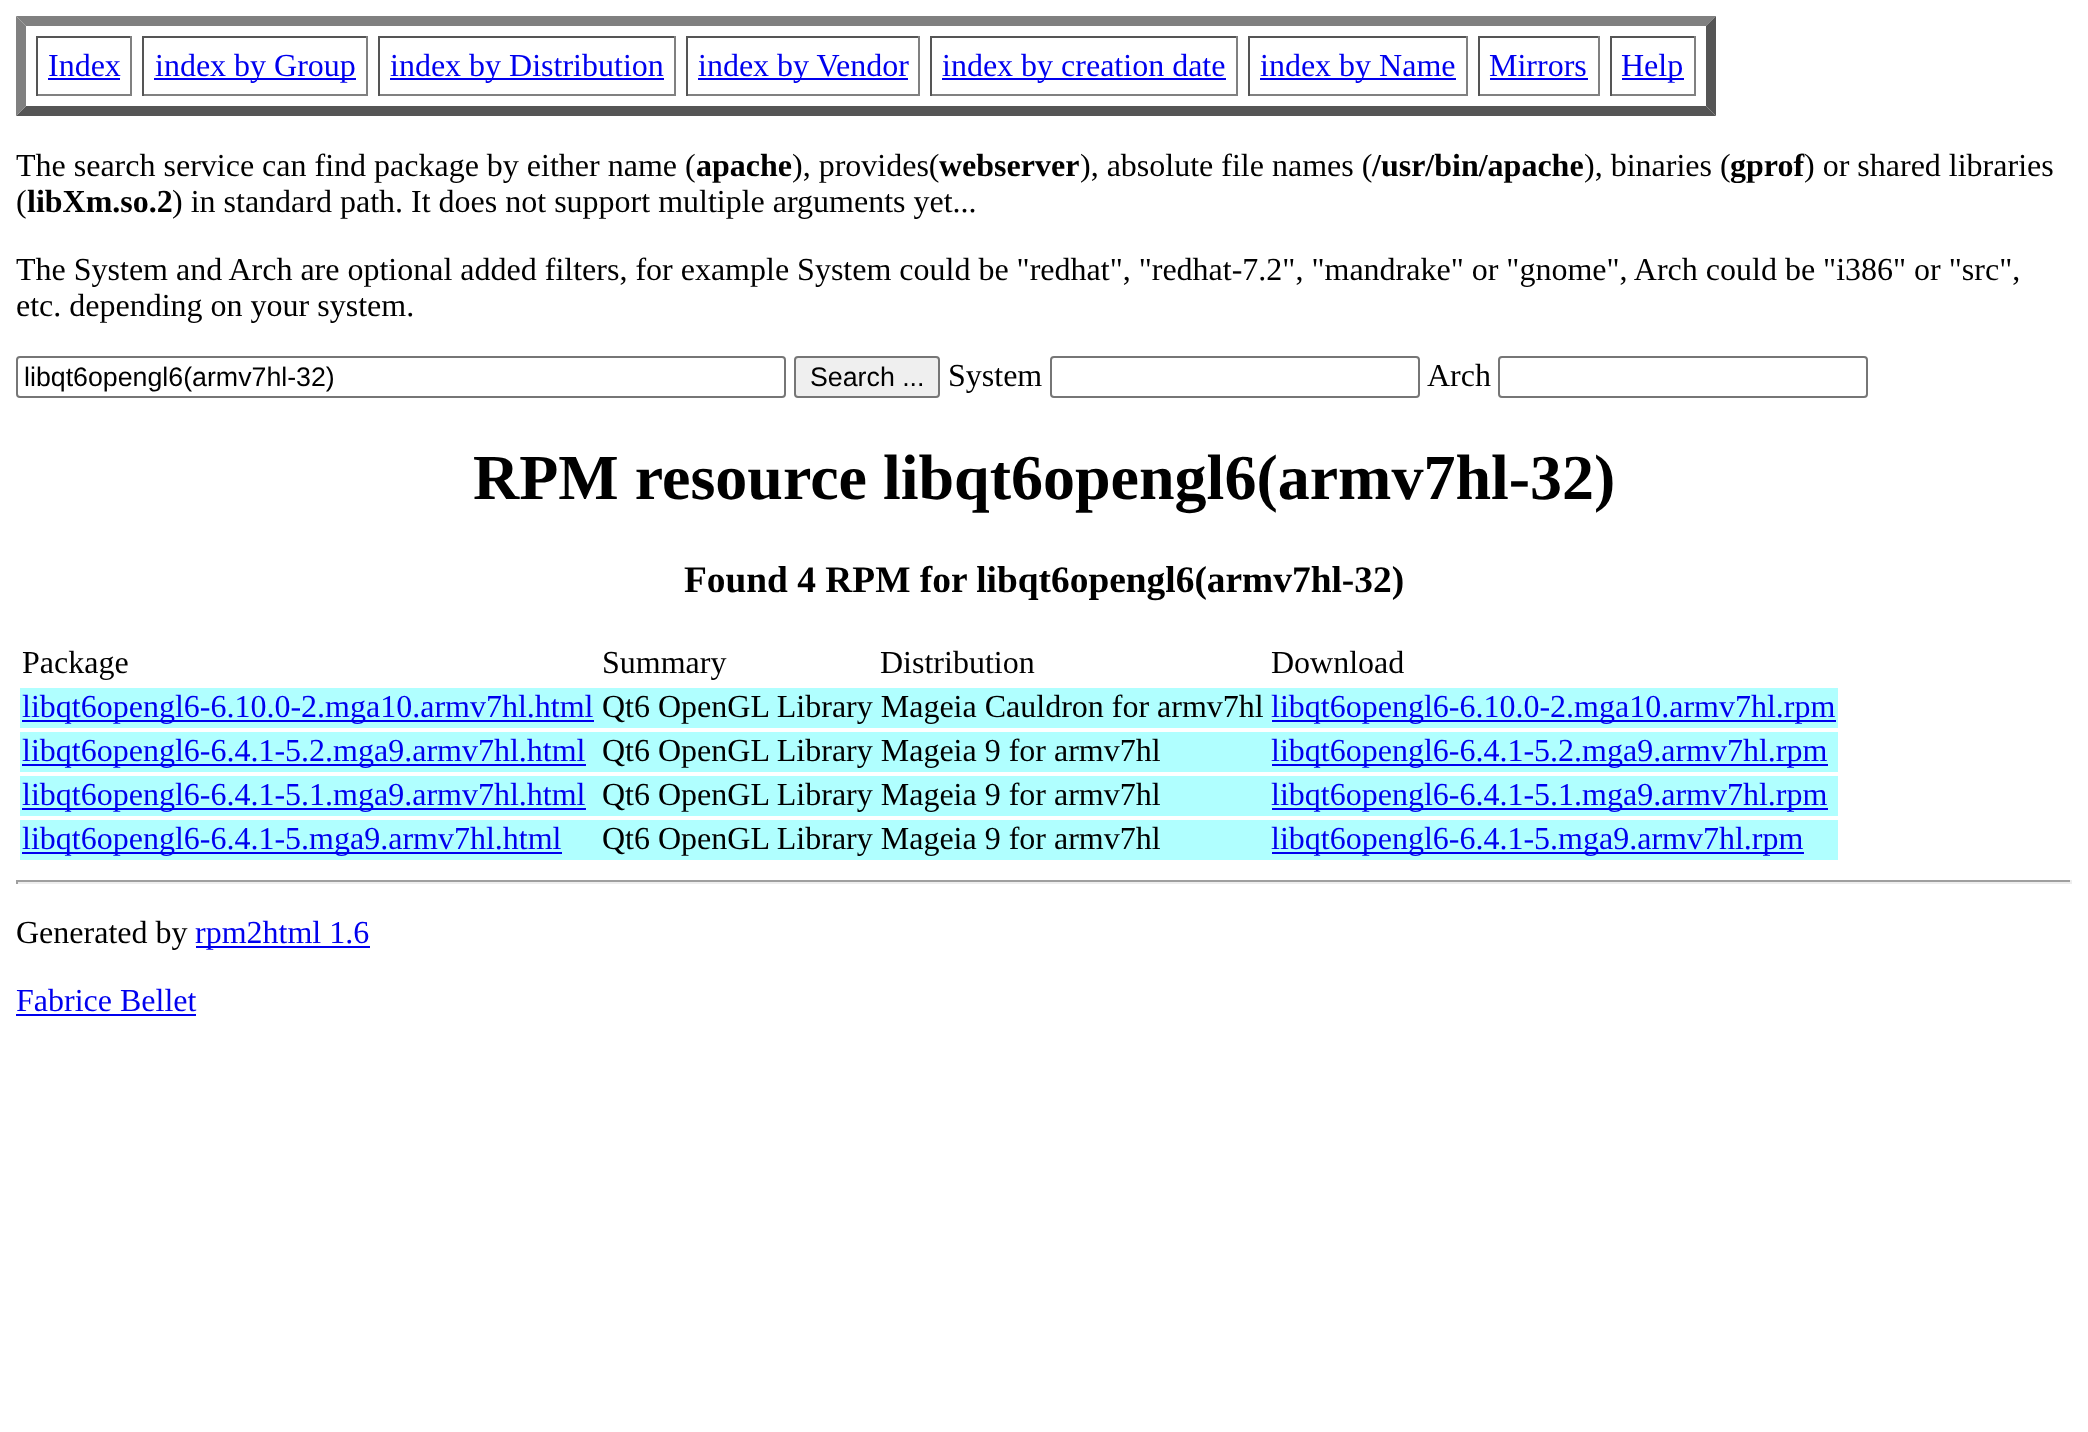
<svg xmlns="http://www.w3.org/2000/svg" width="2088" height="1432">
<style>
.a{font:32px Liberation Serif;fill:#00e}
.b{font:32px Liberation Serif;fill:#000}
.c{font:bold 32px Liberation Serif;fill:#000}
.d{font:26.75px Liberation Sans;fill:#000}
.e{font:bold 64px Liberation Serif;fill:#000}
.f{font:bold 37.4px Liberation Serif;fill:#000}
</style>
<rect width="100%" height="100%" fill="#fff"/>
<path fill="#808080" d="M16 16h1700l-10 10h-1680z"/>
<path fill="#555" d="M1716 16v100l-10-10v-80z"/>
<path fill="#555" d="M1716 116h-1700l10-10h1680z"/>
<path fill="#808080" d="M16 116v-100l10 10v80z"/>
<path fill="#555" d="M36 36h96v2H36z"/>
<path fill="#808080" d="M130 36h2v60H130z"/>
<path fill="#808080" d="M36 94h96v2H36z"/>
<path fill="#555" d="M36 36h2v60H36z"/>
<path fill="#00e" d="M48 78h72v2H48z"/>
<path fill="#555" d="M142 36h226v2H142z"/>
<path fill="#808080" d="M366 36h2v60H366z"/>
<path fill="#808080" d="M142 94h226v2H142z"/>
<path fill="#555" d="M142 36h2v60H142z"/>
<path fill="#00e" d="M154 78h202v2H154z"/>
<path fill="#555" d="M378 36h298v2H378z"/>
<path fill="#808080" d="M674 36h2v60H674z"/>
<path fill="#808080" d="M378 94h298v2H378z"/>
<path fill="#555" d="M378 36h2v60H378z"/>
<path fill="#00e" d="M390 78h274v2H390z"/>
<path fill="#555" d="M686 36h234v2H686z"/>
<path fill="#808080" d="M918 36h2v60H918z"/>
<path fill="#808080" d="M686 94h234v2H686z"/>
<path fill="#555" d="M686 36h2v60H686z"/>
<path fill="#00e" d="M698 78h210v2H698z"/>
<path fill="#555" d="M930 36h308v2H930z"/>
<path fill="#808080" d="M1236 36h2v60H1236z"/>
<path fill="#808080" d="M930 94h308v2H930z"/>
<path fill="#555" d="M930 36h2v60H930z"/>
<path fill="#00e" d="M942 78h284v2H942z"/>
<path fill="#555" d="M1248 36h220v2H1248z"/>
<path fill="#808080" d="M1466 36h2v60H1466z"/>
<path fill="#808080" d="M1248 94h220v2H1248z"/>
<path fill="#555" d="M1248 36h2v60H1248z"/>
<path fill="#00e" d="M1260 78h196v2H1260z"/>
<path fill="#555" d="M1478 36h122v2H1478z"/>
<path fill="#808080" d="M1598 36h2v60H1598z"/>
<path fill="#808080" d="M1478 94h122v2H1478z"/>
<path fill="#555" d="M1478 36h2v60H1478z"/>
<path fill="#00e" d="M1490 78h98v2H1490z"/>
<path fill="#555" d="M1610 36h86v2H1610z"/>
<path fill="#808080" d="M1694 36h2v60H1694z"/>
<path fill="#808080" d="M1610 94h86v2H1610z"/>
<path fill="#555" d="M1610 36h2v60H1610z"/>
<path fill="#00e" d="M1622 78h62v2H1622z"/>
<rect fill="none" stroke="#767676" stroke-width="2" x="17" y="357" width="768" height="40" rx="3"/>
<rect fill="#efefef" stroke="#767676" stroke-width="2" x="795" y="357" width="144" height="40" rx="3"/>
<rect fill="none" stroke="#767676" stroke-width="2" x="1051" y="357" width="368" height="40" rx="3"/>
<rect fill="none" stroke="#767676" stroke-width="2" x="1499" y="357" width="368" height="40" rx="3"/>
<path fill="#b0ffff" d="M20 688h1818v40H20z"/>
<path fill="#00e" d="M22 720h572v2H22z"/>
<path fill="#00e" d="M1272 720h564v2H1272z"/>
<path fill="#b0ffff" d="M20 732h1818v40H20z"/>
<path fill="#00e" d="M22 764h564v2H22z"/>
<path fill="#00e" d="M1272 764h556v2H1272z"/>
<path fill="#b0ffff" d="M20 776h1818v40H20z"/>
<path fill="#00e" d="M22 808h564v2H22z"/>
<path fill="#00e" d="M1272 808h556v2H1272z"/>
<path fill="#b0ffff" d="M20 820h1818v40H20z"/>
<path fill="#00e" d="M22 852h540v2H22z"/>
<path fill="#00e" d="M1272 852h532v2H1272z"/>
<path fill="#9f9f9f" d="M16 880h2056v2H16z"/>
<path fill="#eee" d="M2070 880h2v4H2070z"/>
<path fill="#eee" d="M16 882h2056v2H16z"/>
<path fill="#9f9f9f" d="M16 880h2v4H16z"/>
<path fill="#00e" d="M196 946h174v2H196z"/>
<path fill="#00e" d="M16 1014h180v2H16z"/>
<text class="a" x="48" y="76">Index</text>
<text class="a" x="155" y="76">index by Group</text>
<text class="a" x="390" y="76">index by Distribution</text>
<text class="a" x="698" y="76">index by Vendor</text>
<text class="a" x="942" y="76">index by creation date</text>
<text class="a" x="1260" y="76">index by Name</text>
<text class="a" x="1489" y="76">Mirrors</text>
<text class="a" x="1621" y="76">Help</text>
<text class="b" x="16" y="176">The search service can find package by either name (</text>
<text class="c" x="696" y="176">apache</text>
<text class="b" x="792" y="176">), provides(</text>
<text class="c" x="939" y="176">webserver</text>
<text class="b" x="1080" y="176">), absolute file names (</text>
<text class="c" x="1372" y="176">/usr/bin/apache</text>
<text class="b" x="1584" y="176">), binaries (</text>
<text class="c" x="1730" y="176">gprof</text>
<text class="b" x="1804" y="176">) or shared libraries</text>
<text class="b" x="16" y="212">(</text>
<text class="c" x="27" y="212">libXm.so.2</text>
<text class="b" x="172" y="212">) in standard path. It does not support multiple arguments yet...</text>
<text class="b" x="16" y="280">The System and Arch are optional added filters, for example System could be "redhat", "redhat-7.2", "mandrake" or "gnome", Arch could be "i386" or "src",</text>
<text class="b" x="16" y="316">etc. depending on your system.</text>
<text class="d" x="24" y="386">libqt6opengl6(armv7hl-32)</text>
<text class="d" x="810" y="386">Search ...</text>
<text class="b" x="948" y="386">System</text>
<text class="b" x="1427" y="386">Arch</text>
<text class="e" x="473" y="499">RPM resource libqt6opengl6(armv7hl-32)</text>
<text class="f" x="684" y="592">Found 4 RPM for libqt6opengl6(armv7hl-32)</text>
<text class="b" x="22" y="673">Package</text>
<text class="b" x="602" y="673">Summary</text>
<text class="b" x="880" y="673">Distribution</text>
<text class="b" x="1271" y="673">Download</text>
<text class="a" x="22" y="717">libqt6opengl6-6.10.0-2.mga10.armv7hl.html</text>
<text class="b" x="602" y="717">Qt6 OpenGL Library Mageia Cauldron for armv7hl</text>
<text class="a" x="1271" y="717">libqt6opengl6-6.10.0-2.mga10.armv7hl.rpm</text>
<text class="a" x="22" y="761">libqt6opengl6-6.4.1-5.2.mga9.armv7hl.html</text>
<text class="b" x="602" y="761">Qt6 OpenGL Library Mageia 9 for armv7hl</text>
<text class="a" x="1271" y="761">libqt6opengl6-6.4.1-5.2.mga9.armv7hl.rpm</text>
<text class="a" x="22" y="805">libqt6opengl6-6.4.1-5.1.mga9.armv7hl.html</text>
<text class="b" x="602" y="805">Qt6 OpenGL Library Mageia 9 for armv7hl</text>
<text class="a" x="1271" y="805">libqt6opengl6-6.4.1-5.1.mga9.armv7hl.rpm</text>
<text class="a" x="22" y="849">libqt6opengl6-6.4.1-5.mga9.armv7hl.html</text>
<text class="b" x="602" y="849">Qt6 OpenGL Library Mageia 9 for armv7hl</text>
<text class="a" x="1271" y="849">libqt6opengl6-6.4.1-5.mga9.armv7hl.rpm</text>
<text class="b" x="16" y="943">Generated by</text>
<text class="a" x="195" y="943">rpm2html 1.6</text>
<text class="a" x="16" y="1011">Fabrice Bellet</text>
</svg>
